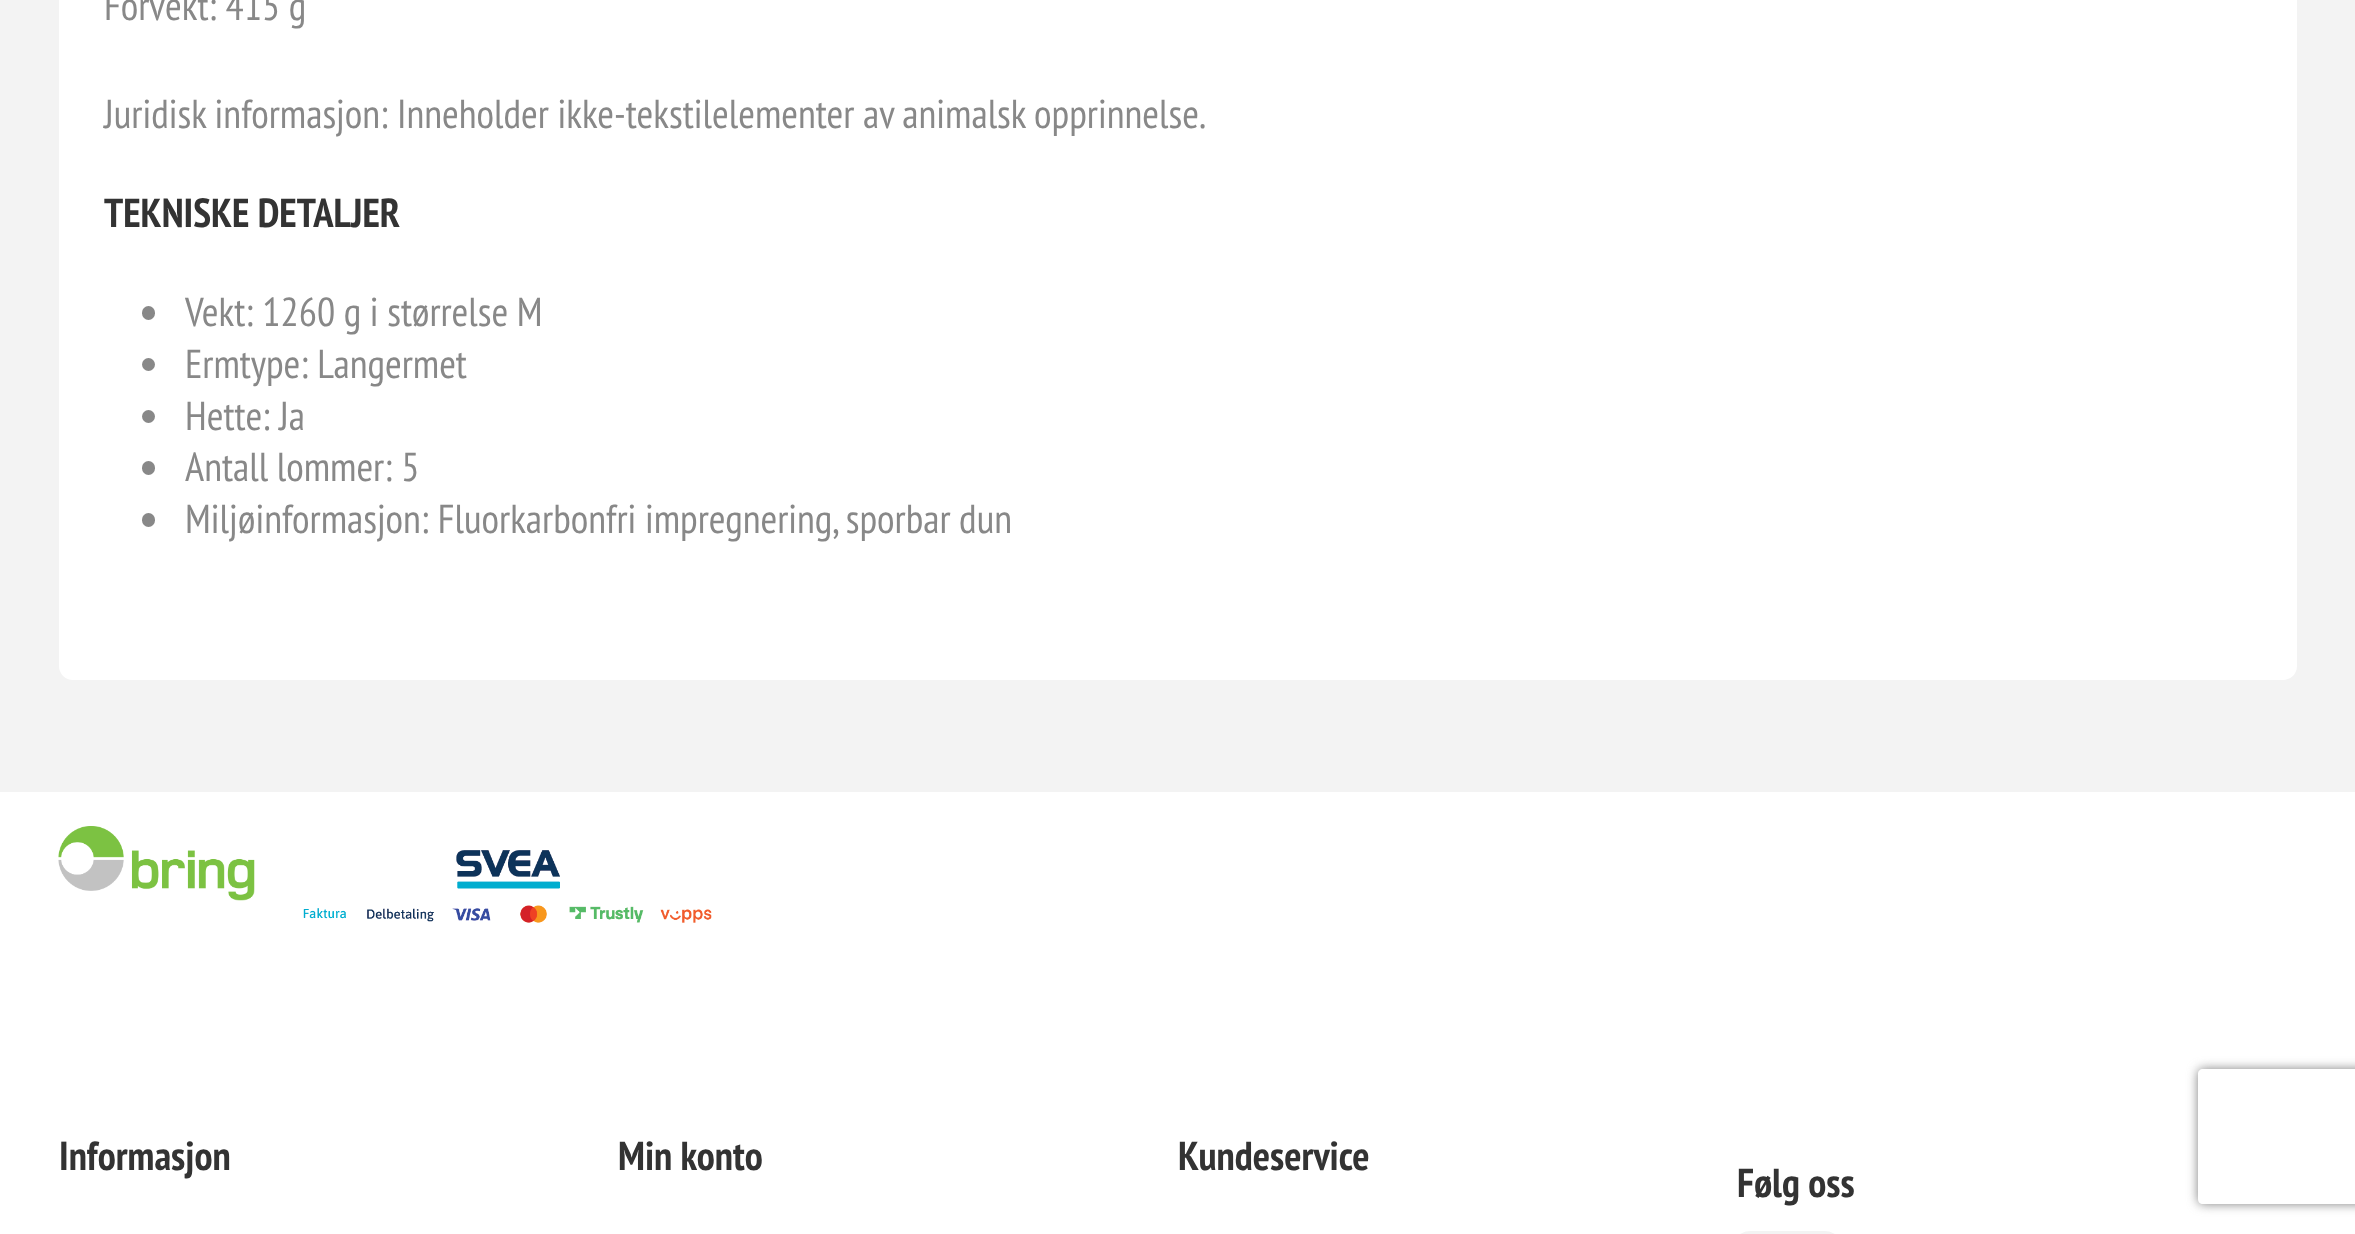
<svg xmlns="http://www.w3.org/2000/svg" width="2355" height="1234">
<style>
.a{font:40.5px PT Sans Narrow;fill:#888}
.b{font:bold 40.5px PT Sans Narrow;fill:#333}
</style>
<defs>
<clipPath id="clip1"><path d="M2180 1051h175v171h-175zm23 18h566c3 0 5 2 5 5v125c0 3-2 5-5 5h-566c-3 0-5-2-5-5v-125c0-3 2-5 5-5z" clip-rule="evenodd"/></clipPath>
</defs>
<rect width="100%" height="100%" fill="#f3f3f3"/>
<rect fill="#fff" x="59" y="-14" width="2238" height="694" rx="14"/>
<rect fill="#888" x="142" y="306" width="13" height="14" rx="6.5"/>
<circle fill="#888" cx="148.5" cy="364.5" r="6.5"/>
<circle fill="#888" cx="148.5" cy="416.5" r="6.5"/>
<rect fill="#888" x="142" y="461" width="13" height="14" rx="6.5"/>
<rect fill="#888" x="142" y="513" width="13" height="14" rx="6.5"/>
<path fill="#fff" d="M0 792h2355v442H0z"/>
<image href="1.png" x="58" y="826" width="197" height="75"/>
<image href="2.png" x="303" y="850" width="409" height="73"/>
<rect fill="#f3f3f3" x="1737" y="1231" width="101" height="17" rx="14"/>
<g clip-path="url(#clip1)">
<rect fill="#808080" filter="blur(5.5px)" x="2198" y="1069" width="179" height="135" rx="5"/>
</g>
<text class="a" x="104" y="20">Fôrvekt: 415 g</text>
<text class="a" x="104" y="128">Juridisk informasjon: Inneholder ikke-tekstilelementer av animalsk opprinnelse.</text>
<text class="b" x="104" y="227">TEKNISKE DETALJER</text>
<text class="a" x="185" y="326">Vekt: 1260 g i størrelse M</text>
<text class="a" x="185" y="378">Ermtype: Langermet</text>
<text class="a" x="185" y="430">Hette: Ja</text>
<text class="a" x="185" y="481">Antall lommer: 5</text>
<text class="a" x="185" y="533">Miljøinformasjon: Fluorkarbonfri impregnering, sporbar dun</text>
<text class="b" x="59" y="1170">Informasjon</text>
<text class="b" x="618" y="1170">Min konto</text>
<text class="b" x="1178" y="1170">Kundeservice</text>
<text class="b" x="1737" y="1197">Følg oss</text>
</svg>
